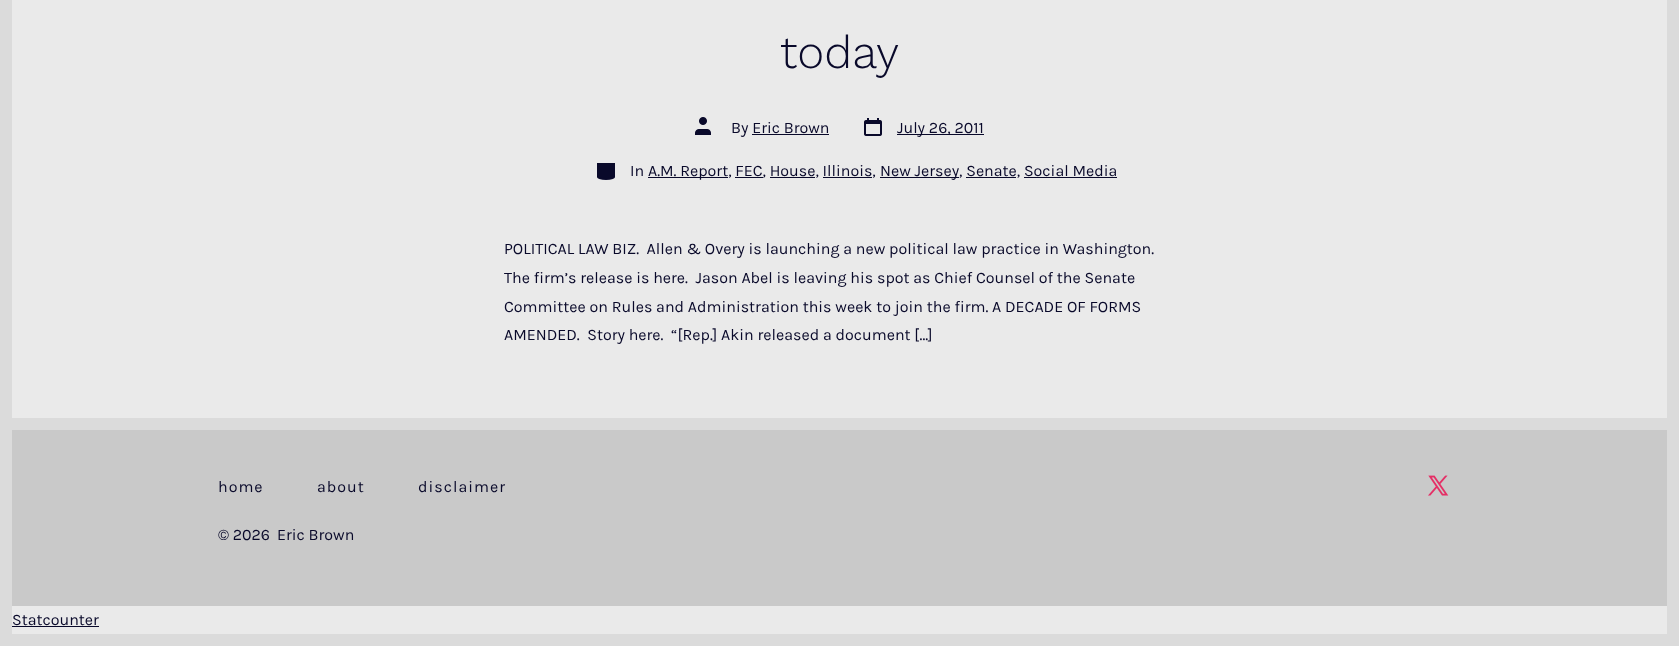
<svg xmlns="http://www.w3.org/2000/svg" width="1679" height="646">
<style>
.a{font:300 46px Work Sans;fill:#09092a}
.b{font:16px Karla;fill:#09092a}
.c{font:16px Karla;letter-spacing:1px;fill:#09092a}
</style>
<rect width="100%" height="100%" fill="#eaeaea"/>
<path fill="#dbdbdb" d="M1667 0h12v634H1667z"/>
<path fill="#dbdbdb" d="M12 634h1667v12H12z"/>
<path fill="#dbdbdb" d="M0 0h12v646H0z"/>
<image href="1.png" x="695" y="117" width="16" height="18"/>
<path fill="#09092a" d="M752 134h77v1H752z"/>
<image href="2.png" x="864" y="118" width="18" height="18"/>
<path fill="#09092a" d="M897 134h87v1H897z"/>
<image href="3.png" x="597" y="163" width="18" height="17"/>
<path fill="#09092a" d="M648 177h80v1H648z"/>
<path fill="#09092a" d="M880 177h79v1H880z"/>
<path fill="#09092a" d="M735 177h28v1H735z"/>
<path fill="#09092a" d="M770 177h45v1H770z"/>
<path fill="#09092a" d="M823 177h49v1H823z"/>
<path fill="#09092a" d="M966 177h50v1H966z"/>
<path fill="#09092a" d="M1024 177h93v1H1024z"/>
<path fill="#c9c9c9" d="M12 430h1655v176H12z"/>
<path fill="#dbdbdb" d="M12 418h1655v12H12z"/>
<image href="4.png" x="1428" y="475" width="21" height="21"/>
<path fill="#09092a" d="M12 626h87v1H12z"/>
<text class="a" x="780" y="68">today</text>
<text class="b" x="731" y="133">By Eric Brown</text>
<text class="b" x="897" y="133">July 26, 2011</text>
<text class="b" x="630" y="176">In</text>
<text class="b" x="648" y="176">A.M. Report, FEC, House, Illinois,</text>
<text class="b" x="880" y="176">New Jersey, Senate, Social Media</text>
<text class="b" xml:space="preserve" x="504" y="254">POLITICAL LAW BIZ.  Allen &amp; Overy is launching a new political law practice in Washington.</text>
<text class="b" xml:space="preserve" x="504" y="283">The firm’s release is here.  Jason Abel is leaving his spot as Chief Counsel of the Senate</text>
<text class="b" x="504" y="312">Committee on Rules and Administration this week to join the firm. A DECADE OF FORMS</text>
<text class="b" xml:space="preserve" x="504" y="340">AMENDED.  Story here.  “[Rep.] Akin released a document […]</text>
<text class="c" x="218" y="492">home</text>
<text class="c" x="317" y="492">about</text>
<text class="c" x="418" y="492">disclaimer</text>
<text class="b" x="218" y="540">© 2026</text>
<text class="b" x="277" y="540">Eric Brown</text>
<text class="b" x="12" y="625">Statcounter</text>
</svg>
